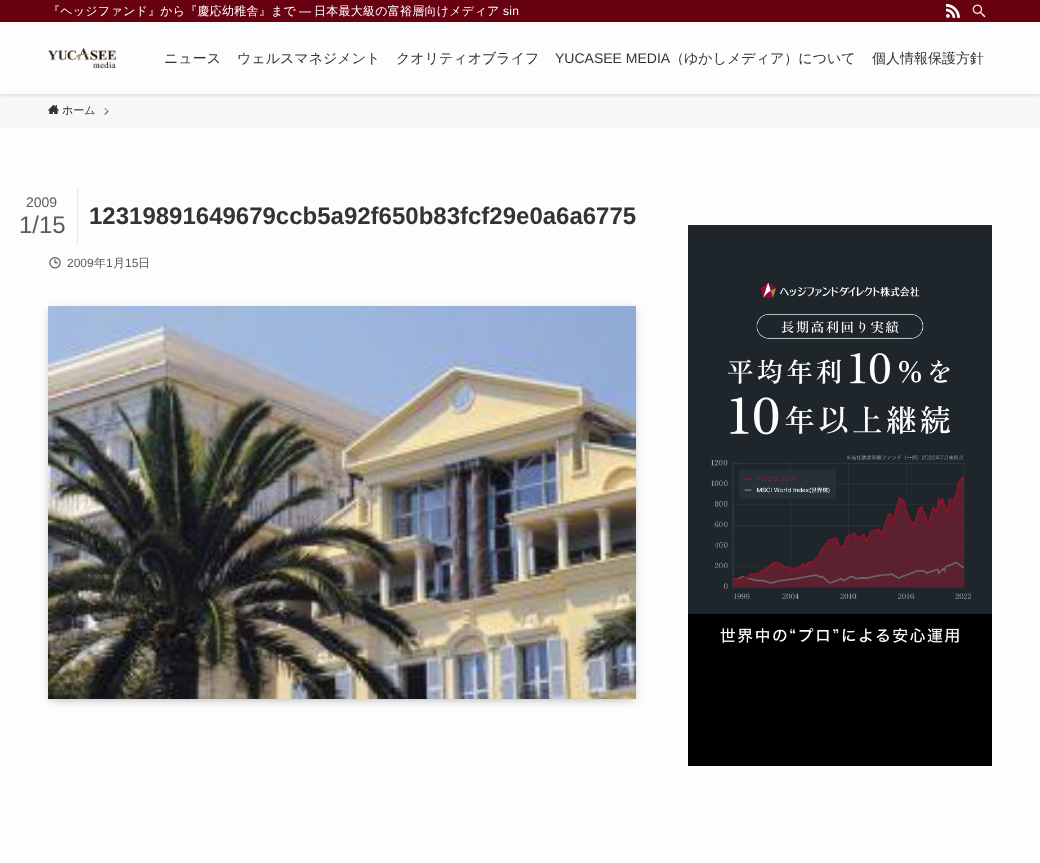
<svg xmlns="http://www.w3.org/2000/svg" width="1040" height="863">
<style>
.a{font:500 12px WenQuanYi Zen Hei;letter-spacing:0.25px;fill:#fff}
.b{font:12px Liberation Sans;letter-spacing:0.25px;fill:#fff}
.c{font:500 14px WenQuanYi Zen Hei;fill:#333}
.d{font:14px Liberation Sans;fill:#333}
.e{font:500 11px WenQuanYi Zen Hei;fill:#333}
.f{font:14px Liberation Sans;fill:#5b5b5b}
.g{font:24px Liberation Sans;fill:#5b5b5b}
.h{font:bold 24px Liberation Sans;fill:#333}
.i{font:12px Liberation Sans;fill:#5b5b5b}
.j{font:500 12px WenQuanYi Zen Hei;fill:#5b5b5b}
</style>
<defs>
<clipPath id="clip1"><path d="M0 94h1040v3H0z"/></clipPath>
</defs>
<rect width="100%" height="100%" fill="#fdfdfd"/>
<path fill="#f7f7f7" d="M0 94h1040v34H0z"/>
<g clip-path="url(#clip1)">
<path fill="#0000001f" filter="blur(2px)" d="M0 1h1040v94H0z"/>
</g>
<path fill="#680110" d="M0 0h1040v22H0z"/>
<image href="1.png" x="946" y="3" width="14" height="15"/>
<image href="2.png" x="972" y="4" width="14" height="14"/>
<image href="3.png" x="48" y="48" width="68" height="20"/>
<image href="4.png" x="48" y="104" width="11" height="10"/>
<path fill="#5a5a5a" d="M105 108l3.5 3.5l-.5 .5l-3.5-3.5z"/>
<path fill="#5a5a5a" d="M108 110.5l.5 1l-3.5 3.5l-.5-1z"/>
<path fill="#e8e8e8" d="M77 188h1v57H77z"/>
<image href="5.png" x="49" y="257" width="12" height="12"/>
<path fill="#00000033" filter="blur(4px)" d="M52 314h580v385H52z"/>
<path fill="#0000001a" filter="blur(4px)" d="M48 308h588v393H48z"/>
<image href="6.png" x="48" y="306" width="588" height="393"/>
<image href="7.png" x="688" y="225" width="304" height="541"/>
<text class="a" x="48" y="15">『ヘッジファンド』から『慶応幼稚舎』まで</text>
<text class="b" x="299" y="15">―</text>
<text class="a" x="314" y="15">日本最大級の富裕層向けメディア</text>
<text class="b" x="503" y="15">sin</text>
<text class="c" x="164" y="63">ニュース</text>
<text class="c" x="237" y="63">ウェルスマネジメント</text>
<text class="c" x="396" y="63">クオリティオブライフ</text>
<text class="d" x="555" y="63">YUCASEE MEDIA</text>
<text class="c" x="670" y="63">（ゆかしメディア）について</text>
<text class="c" x="872" y="63">個人情報保護方針</text>
<text class="e" x="62" y="114">ホーム</text>
<text class="f" x="26" y="207">2009</text>
<text class="g" x="19" y="233">1/15</text>
<text class="h" x="89" y="224">12319891649679ccb5a92f650b83fcf29e0a6a6775</text>
<text class="i" x="67" y="267">2009</text>
<text class="j" x="94" y="267">年</text>
<text class="i" x="106" y="267">1</text>
<text class="j" x="113" y="267">月</text>
<text class="i" x="125" y="267">15</text>
<text class="j" x="138" y="267">日</text>
</svg>
